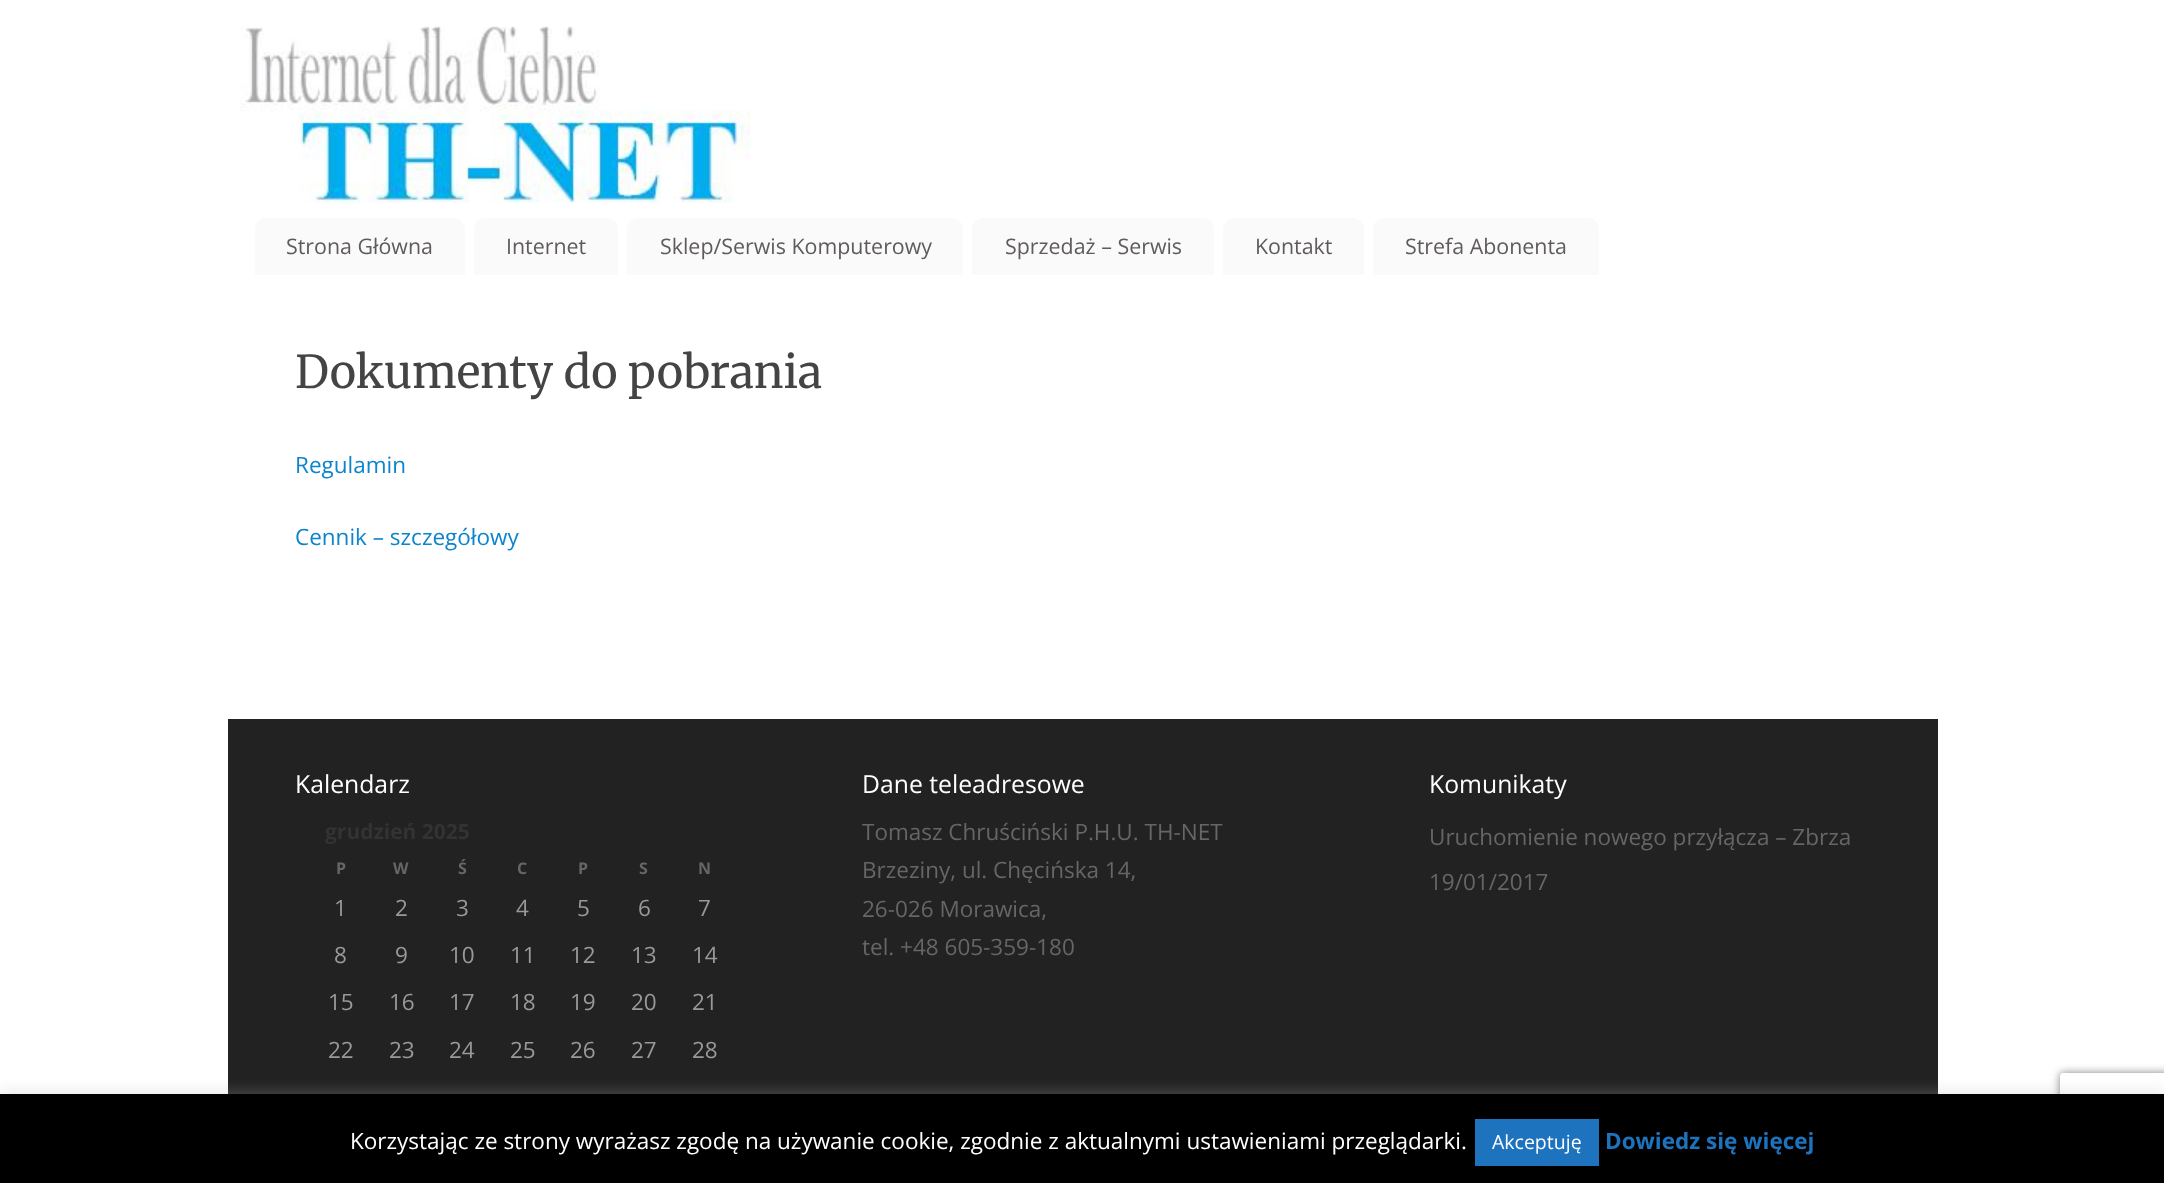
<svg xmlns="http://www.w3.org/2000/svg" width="2164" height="1183">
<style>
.a{font:21.4px Open Sans;fill:#5f5b5b}
.b{font:45px Merriweather;fill:#444}
.c{font:22.5px Open Sans;fill:#0d85cc}
.d{font:24.75px Open Sans;fill:#fff}
.e{font:bold 21px Open Sans;fill:#333}
.f{font:bold 16px Open Sans;fill:#666}
.g{font:22.5px Open Sans;fill:#999}
.h{font:22.5px Open Sans;fill:#666}
.i{font:22.5px Open Sans;fill:#fff}
.j{font:19.5px Open Sans;fill:#fff}
.k{font:bold 22.5px Open Sans;fill:#1e73be}
</style>
<defs>
<clipPath id="clip1"><path d="M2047 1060h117v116h-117zm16 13h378c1.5 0 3 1.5 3 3v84c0 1.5-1.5 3-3 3h-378c-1.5 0-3-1.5-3-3v-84c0-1.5 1.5-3 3-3z" clip-rule="evenodd"/></clipPath>
</defs>
<rect width="100%" height="100%" fill="#fff"/>
<image href="1.png" x="240" y="26" width="510" height="177"/>
<path fill="#fafafa" d="M266 218h188c6 0 11 5 11 11v46h-210v-46c0-6 5-11 11-11z"/>
<path fill="#fafafa" d="M485 218h122c6 0 11 5 11 11v46h-144v-46c0-6 5-11 11-11z"/>
<path fill="#fafafa" d="M638 218h314c6 0 11 5 11 11v46h-336v-46c0-6 5-11 11-11z"/>
<path fill="#fafafa" d="M983 218h220c6 0 11 5 11 11v46h-242v-46c0-6 5-11 11-11z"/>
<path fill="#fafafa" d="M1234 218h119c6 0 11 5 11 11v46h-141v-46c0-6 5-11 11-11z"/>
<path fill="#fafafa" d="M1384 218h204c6 0 11 5 11 11v46h-226v-46c0-6 5-11 11-11z"/>
<path fill="#222" d="M228 719h1710v375H228z"/>
<path fill="#acabab4d" filter="blur(7.5px)" d="M0 1092h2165v90H0z"/>
<g clip-path="url(#clip1)">
<rect fill="#808080" filter="blur(4px)" x="2060" y="1073" width="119" height="90" rx="3"/>
</g>
<path fill="#000" d="M0 1094h2164v89H0z"/>
<path fill="#1e73be" d="M1475 1119h124v47H1475z"/>
<text class="a" x="286" y="254">Strona Główna</text>
<text class="a" x="506" y="254">Internet</text>
<text class="a" x="660" y="254">Sklep/Serwis Komputerowy</text>
<text class="a" x="1005" y="254">Sprzedaż – Serwis</text>
<text class="a" x="1255" y="254">Kontakt</text>
<text class="a" x="1405" y="254">Strefa Abonenta</text>
<text class="b" x="295" y="388">Dokumenty do pobrania</text>
<text class="c" x="295" y="473">Regulamin</text>
<text class="c" x="295" y="545">Cennik – szczegółowy</text>
<text class="d" x="295" y="793">Kalendarz</text>
<text class="e" x="325" y="839">grudzień 2025</text>
<text class="f" x="336" y="874">P</text>
<text class="f" x="393" y="874">W</text>
<text class="f" x="458" y="874">Ś</text>
<text class="f" x="517" y="874">C</text>
<text class="f" x="578" y="874">P</text>
<text class="f" x="639" y="874">S</text>
<text class="f" x="698" y="874">N</text>
<text class="g" x="334" y="916">1</text>
<text class="g" x="395" y="916">2</text>
<text class="g" x="456" y="916">3</text>
<text class="g" x="516" y="916">4</text>
<text class="g" x="577" y="916">5</text>
<text class="g" x="638" y="916">6</text>
<text class="g" x="698" y="916">7</text>
<text class="g" x="334" y="963">8</text>
<text class="g" x="395" y="963">9</text>
<text class="g" x="449" y="963">10</text>
<text class="g" x="510" y="963">11</text>
<text class="g" x="570" y="963">12</text>
<text class="g" x="631" y="963">13</text>
<text class="g" x="692" y="963">14</text>
<text class="g" x="328" y="1010">15</text>
<text class="g" x="389" y="1010">16</text>
<text class="g" x="449" y="1010">17</text>
<text class="g" x="510" y="1010">18</text>
<text class="g" x="570" y="1010">19</text>
<text class="g" x="631" y="1010">20</text>
<text class="g" x="692" y="1010">21</text>
<text class="g" x="328" y="1058">22</text>
<text class="g" x="389" y="1058">23</text>
<text class="g" x="449" y="1058">24</text>
<text class="g" x="510" y="1058">25</text>
<text class="g" x="570" y="1058">26</text>
<text class="g" x="631" y="1058">27</text>
<text class="g" x="692" y="1058">28</text>
<text class="d" x="862" y="793">Dane teleadresowe</text>
<text class="h" x="862" y="840">Tomasz Chruściński P.H.U. TH-NET</text>
<text class="h" x="862" y="878">Brzeziny, ul. Chęcińska 14,</text>
<text class="h" x="862" y="917">26-026 Morawica,</text>
<text class="h" x="862" y="955">tel. +48 605-359-180</text>
<text class="d" x="1429" y="793">Komunikaty</text>
<text class="h" x="1429" y="845">Uruchomienie nowego przyłącza – Zbrza</text>
<text class="h" x="1429" y="890">19/01/2017</text>
<text class="i" x="350" y="1149">Korzystając ze strony wyrażasz zgodę na używanie cookie, zgodnie z aktualnymi ustawieniami przeglądarki.</text>
<text class="j" x="1492" y="1149">Akceptuję</text>
<text class="k" x="1605" y="1149">Dowiedz się więcej</text>
</svg>
